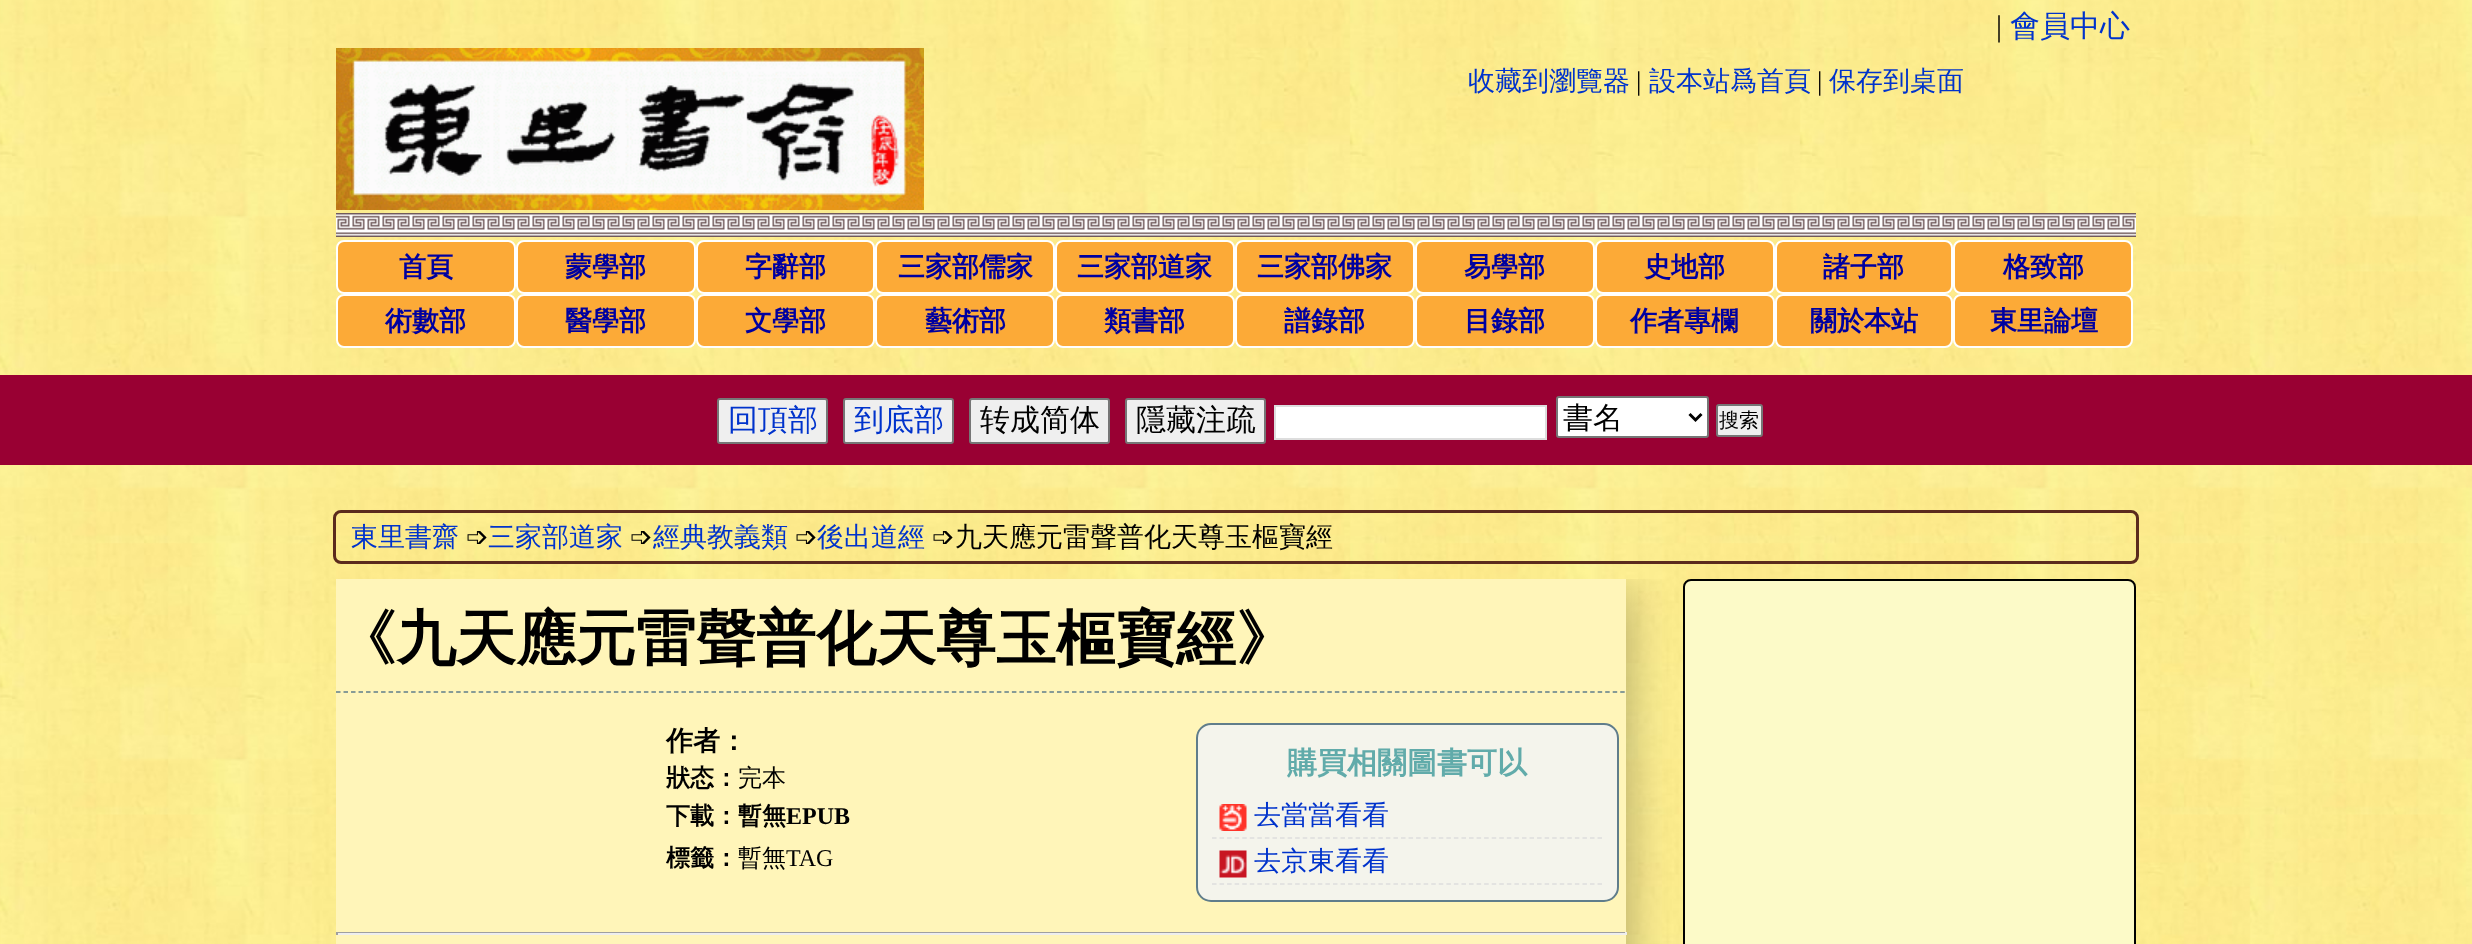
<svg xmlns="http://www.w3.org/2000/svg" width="2472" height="944">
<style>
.a{font:30px Liberation Serif;fill:#000}
.b{font:500 30px WenQuanYi Zen Hei;fill:#03c}
.c{font:500 27px WenQuanYi Zen Hei;fill:#03c}
.d{font:27px Liberation Serif;fill:#000}
.e{font:bold 27px WenQuanYi Zen Hei;fill:#0000a0}
.f{font:500 30px WenQuanYi Zen Hei;fill:#000}
.g{font:500 20px WenQuanYi Zen Hei;fill:#000}
.h{font:27px DejaVu Sans;fill:#000}
.i{font:500 27px WenQuanYi Zen Hei;fill:#000}
.j{font:bold 60px WenQuanYi Zen Hei;fill:#000}
.k{font:bold 27px WenQuanYi Zen Hei;fill:#000}
.l{font:bold 24px WenQuanYi Zen Hei;fill:#000}
.m{font:500 24px WenQuanYi Zen Hei;fill:#000}
.n{font:bold 24px Liberation Serif;fill:#000}
.o{font:24px Liberation Serif;fill:#000}
.p{font:bold 30px WenQuanYi Zen Hei;fill:#61abaa}
</style>
<defs>
<clipPath id="clip1"><path d="M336 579h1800v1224H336z"/></clipPath>
</defs>
<rect width="100%" height="100%" fill="#fff"/>
<image href="1.png" x="0" y="0" width="2472" height="944"/>
<image href="2.png" x="336" y="48" width="588" height="162"/>
<image href="3.png" x="336" y="213" width="1800" height="24"/>
<rect fill="#fcaa37" stroke="#fff" stroke-width="2" x="337" y="241" width="178" height="52" rx="7"/>
<rect fill="#fcaa37" stroke="#fff" stroke-width="2" x="517" y="241" width="178" height="52" rx="7"/>
<rect fill="#fcaa37" stroke="#fff" stroke-width="2" x="697" y="241" width="177" height="52" rx="7"/>
<rect fill="#fcaa37" stroke="#fff" stroke-width="2" x="876" y="241" width="178" height="52" rx="7"/>
<rect fill="#fcaa37" stroke="#fff" stroke-width="2" x="1056" y="241" width="178" height="52" rx="7"/>
<rect fill="#fcaa37" stroke="#fff" stroke-width="2" x="1236" y="241" width="178" height="52" rx="7"/>
<rect fill="#fcaa37" stroke="#fff" stroke-width="2" x="1416" y="241" width="178" height="52" rx="7"/>
<rect fill="#fcaa37" stroke="#fff" stroke-width="2" x="1596" y="241" width="178" height="52" rx="7"/>
<rect fill="#fcaa37" stroke="#fff" stroke-width="2" x="1776" y="241" width="176" height="52" rx="7"/>
<rect fill="#fcaa37" stroke="#fff" stroke-width="2" x="1954" y="241" width="178" height="52" rx="7"/>
<rect fill="#fcaa37" stroke="#fff" stroke-width="2" x="337" y="295" width="178" height="52" rx="7"/>
<rect fill="#fcaa37" stroke="#fff" stroke-width="2" x="517" y="295" width="178" height="52" rx="7"/>
<rect fill="#fcaa37" stroke="#fff" stroke-width="2" x="697" y="295" width="177" height="52" rx="7"/>
<rect fill="#fcaa37" stroke="#fff" stroke-width="2" x="876" y="295" width="178" height="52" rx="7"/>
<rect fill="#fcaa37" stroke="#fff" stroke-width="2" x="1056" y="295" width="178" height="52" rx="7"/>
<rect fill="#fcaa37" stroke="#fff" stroke-width="2" x="1236" y="295" width="178" height="52" rx="7"/>
<rect fill="#fcaa37" stroke="#fff" stroke-width="2" x="1416" y="295" width="178" height="52" rx="7"/>
<rect fill="#fcaa37" stroke="#fff" stroke-width="2" x="1596" y="295" width="178" height="52" rx="7"/>
<rect fill="#fcaa37" stroke="#fff" stroke-width="2" x="1776" y="295" width="176" height="52" rx="7"/>
<rect fill="#fcaa37" stroke="#fff" stroke-width="2" x="1954" y="295" width="178" height="52" rx="7"/>
<path fill="#903" d="M0 375h2472v90H0z"/>
<rect fill="#efefef" stroke="#767676" stroke-width="2" x="718" y="399" width="109" height="44" rx="2"/>
<rect fill="#efefef" stroke="#767676" stroke-width="2" x="844" y="399" width="109" height="44" rx="2"/>
<rect fill="#efefef" stroke="#767676" stroke-width="2" x="970" y="399" width="139" height="44" rx="2"/>
<rect fill="#efefef" stroke="#767676" stroke-width="2" x="1126" y="399" width="139" height="44" rx="2"/>
<path fill="#fff" stroke="#ddd" stroke-width="2" d="M1275 406h271v33H1275z"/>
<rect fill="#fff" stroke="#767676" stroke-width="2" x="1557" y="397" width="151" height="40" rx="2"/>
<path fill="none" stroke="#000" stroke-width="3" d="M1689.5 414l6 6l6-6"/>
<rect fill="#efefef" stroke="#767676" stroke-width="2" x="1717" y="405" width="45" height="31" rx="2"/>
<rect fill="none" stroke="#5b2b1d" stroke-width="3" x="334.5" y="511.5" width="1803" height="51" rx="6.5"/>
<g clip-path="url(#clip1)">
<path fill="#00000052" filter="blur(24px)" d="M336 591h1290v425H336z"/>
</g>
<path fill="#fff5b9" d="M336 579h1290v365H336z"/>
<path fill="none" stroke="#607d8b" stroke-width="1.5" stroke-dasharray="4.5 3.01" d="M336 692h1290"/>
<rect fill="#f4f4ec" stroke="#607d8b" stroke-width="2" x="1197" y="724" width="421" height="177" rx="14"/>
<path fill="none" stroke="#ddd" stroke-width="1.5" stroke-dasharray="4.5 3.06" d="M1212 838h390"/>
<image href="4.png" x="1219" y="804" width="28" height="27"/>
<path fill="none" stroke="#ddd" stroke-width="1.5" stroke-dasharray="4.5 3.06" d="M1212 884h390"/>
<image href="5.png" x="1219" y="850" width="28" height="28"/>
<path fill="#9f9f9f" d="M336 932h1290v1H336z"/>
<path fill="#eee" d="M1625 932h2v3H1625z"/>
<path fill="#eee" d="M336 933h1290v2H336z"/>
<path fill="#9f9f9f" d="M336 932h2v3H336z"/>
<rect fill="#fcfac8" stroke="#000" stroke-width="2" x="1684" y="580" width="451" height="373" rx="7"/>
<text class="a" x="1996" y="36">|</text>
<text class="b" x="2010" y="36">會員中心</text>
<text class="c" x="1468" y="90">收藏到瀏覽器</text>
<text class="d" x="1636" y="90">|</text>
<text class="c" x="1649" y="90">設本站爲首頁</text>
<text class="d" x="1817" y="90">|</text>
<text class="c" x="1829" y="90">保存到桌面</text>
<text class="e" x="399" y="276">首頁</text>
<text class="e" x="565" y="276">蒙學部</text>
<text class="e" x="745" y="276">字辭部</text>
<text class="e" x="898" y="276">三家部儒家</text>
<text class="e" x="1077" y="276">三家部道家</text>
<text class="e" x="1257" y="276">三家部佛家</text>
<text class="e" x="1464" y="276">易學部</text>
<text class="e" x="1644" y="276">史地部</text>
<text class="e" x="1823" y="276">諸子部</text>
<text class="e" x="2003" y="276">格致部</text>
<text class="e" x="385" y="330">術數部</text>
<text class="e" x="565" y="330">醫學部</text>
<text class="e" x="745" y="330">文學部</text>
<text class="e" x="925" y="330">藝術部</text>
<text class="e" x="1104" y="330">類書部</text>
<text class="e" x="1284" y="330">譜錄部</text>
<text class="e" x="1464" y="330">目錄部</text>
<text class="e" x="1630" y="330">作者專欄</text>
<text class="e" x="1810" y="330">關於本站</text>
<text class="e" x="1990" y="330">東里論壇</text>
<text class="b" x="728" y="430">回頂部</text>
<text class="b" x="854" y="430">到底部</text>
<text class="f" x="980" y="430">转成简体</text>
<text class="f" x="1136" y="430">隱藏注疏</text>
<text class="f" x="1563" y="428">書名</text>
<text class="g" x="1719" y="427">搜索</text>
<text class="c" x="351" y="546">東里書齋</text>
<text class="h" x="466" y="546">➩</text>
<text class="c" x="488" y="546">三家部道家</text>
<text class="h" x="630" y="546">➩</text>
<text class="c" x="653" y="546">經典教義類</text>
<text class="h" x="795" y="546">➩</text>
<text class="c" x="817" y="546">後出道經</text>
<text class="h" x="932" y="546">➩</text>
<text class="i" x="955" y="546">九天應元雷聲普化天尊玉樞寶經</text>
<text class="j" x="336" y="659">《九天應元雷聲普化天尊玉樞寶經》</text>
<text class="k" x="666" y="750">作者：</text>
<text class="l" x="666" y="786">狀态：</text>
<text class="m" x="738" y="786">完本</text>
<text class="l" x="666" y="824">下載：暫無</text>
<text class="n" x="786" y="824">EPUB</text>
<text class="l" x="666" y="866">標籤：</text>
<text class="m" x="738" y="866">暫無</text>
<text class="o" x="786" y="866">TAG</text>
<text class="p" x="1287" y="773">購買相關圖書可以</text>
<text class="c" x="1254" y="824">去當當看看</text>
<text class="c" x="1254" y="870">去京東看看</text>
</svg>
